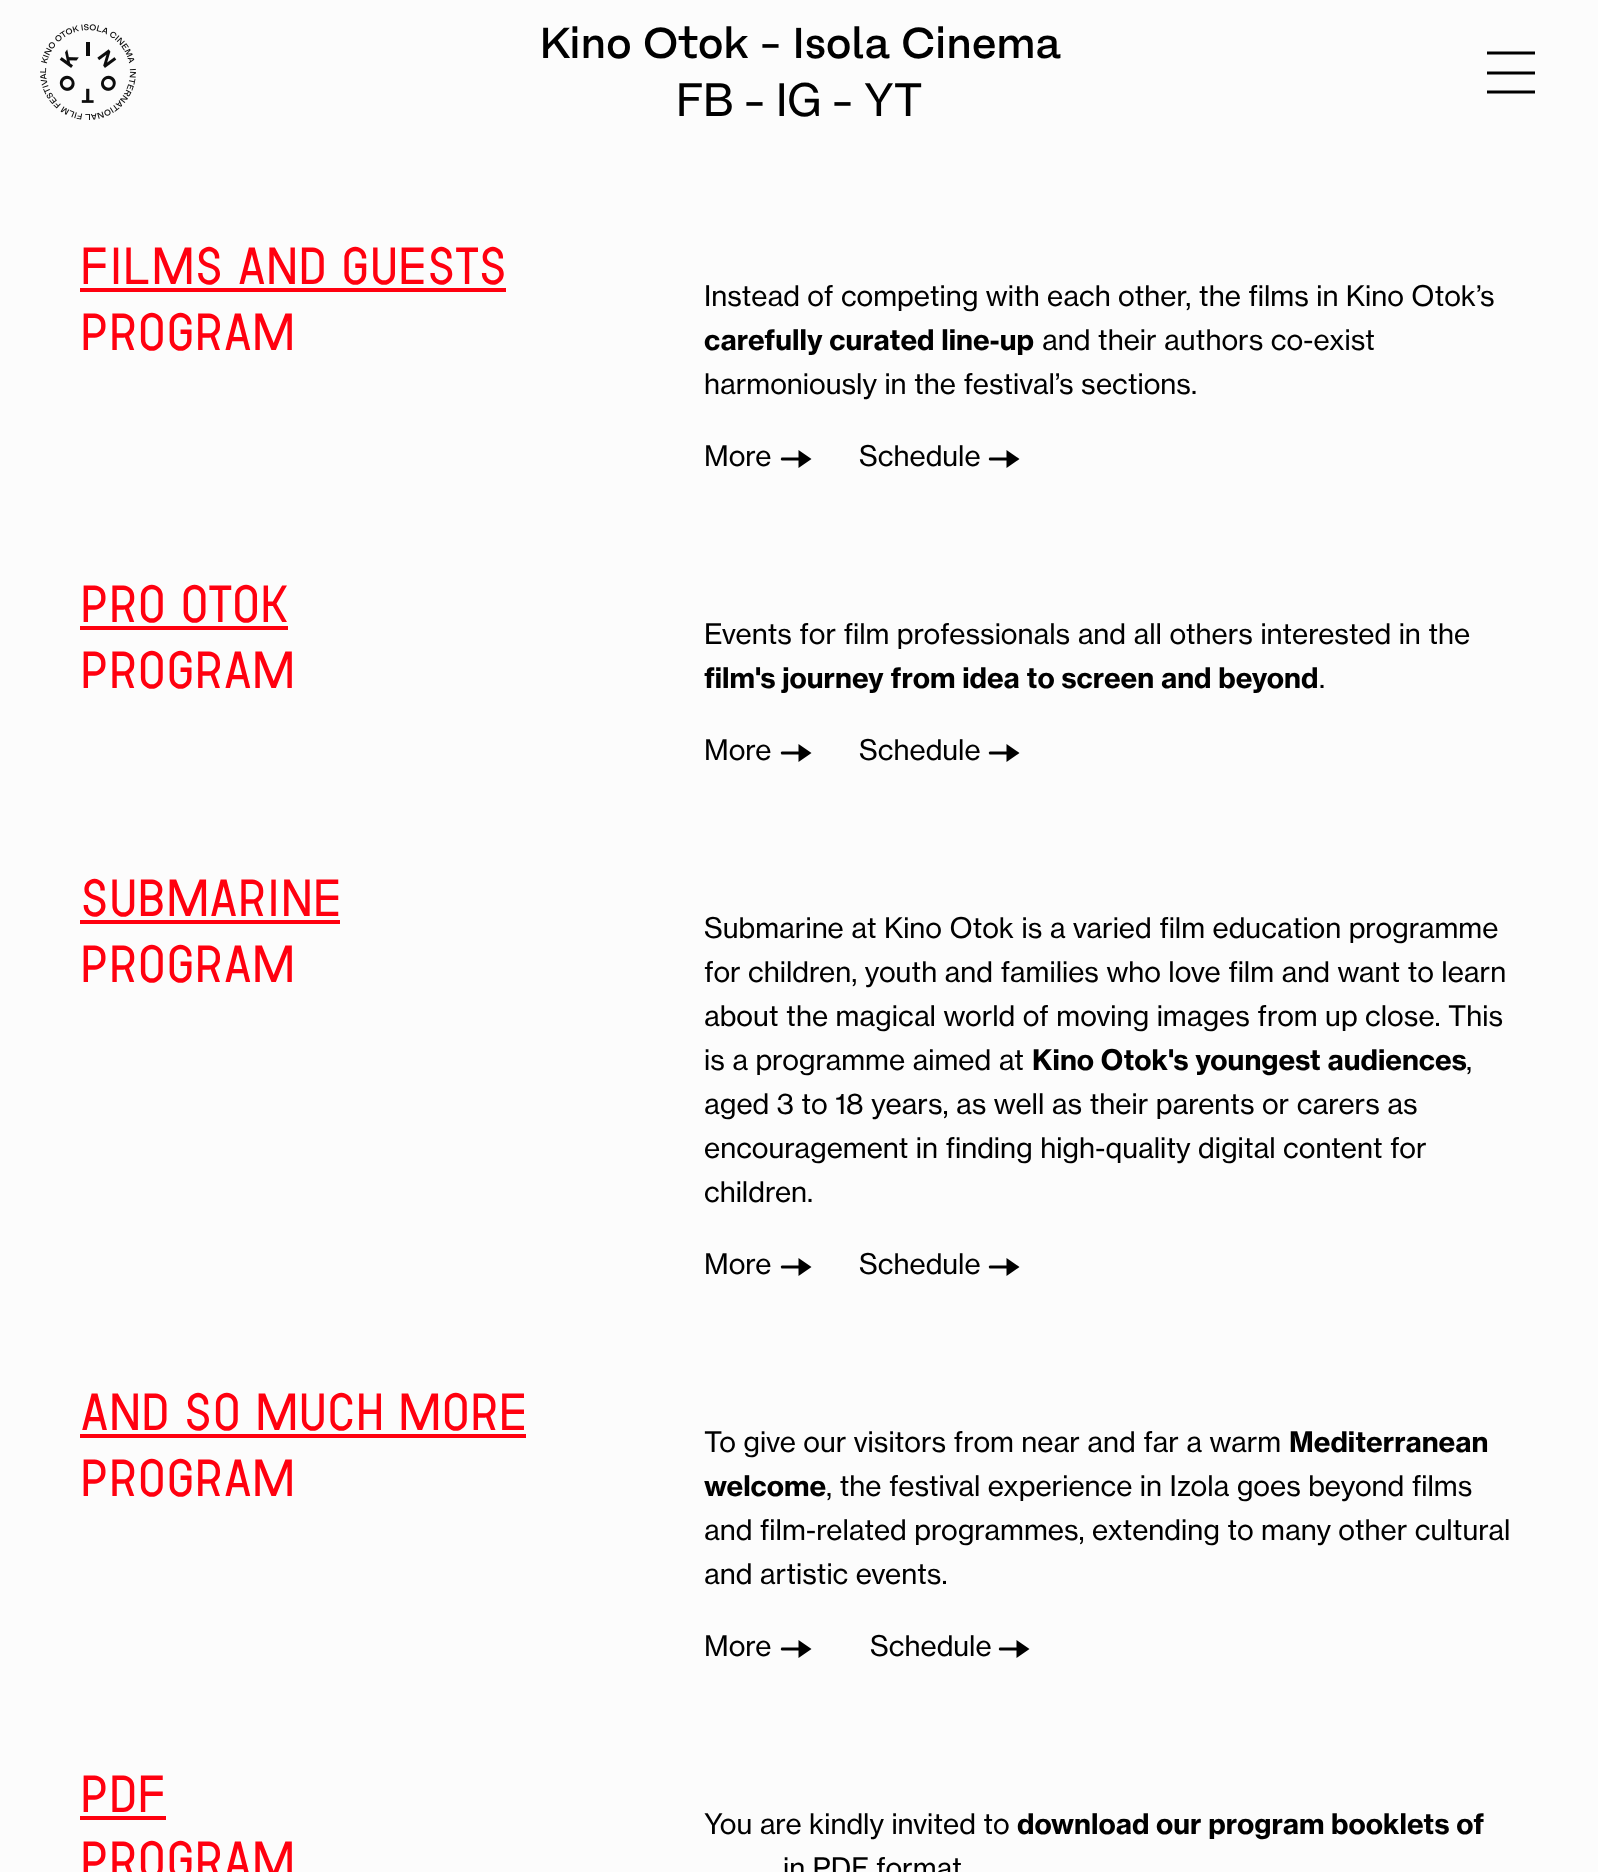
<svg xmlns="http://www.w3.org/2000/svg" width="1598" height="1872">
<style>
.a{font:500 44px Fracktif;letter-spacing:-0.4px;fill:#000}
.b{font:44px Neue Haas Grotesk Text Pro;letter-spacing:-0.4px;fill:#000}
.c{font:500 52px 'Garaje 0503';letter-spacing:-0.5px;fill:#ff000f}
.d{font:28px Neue Haas Grotesk Text Pro;fill:#000}
.e{font:bold 28px Neue Haas Grotesk Text Pro;fill:#000}
</style>
<rect width="100%" height="100%" fill="#fcfcfc"/>
<image href="1.png" x="40" y="24" width="96" height="96"/>
<path fill="none" stroke="#000" stroke-width="3" d="M1535 53h-48m48 20h-48m48 19h-48"/>
<path fill="#ff000f" d="M80 288h426v4H80z"/>
<path fill="#000" d="M811.5 459l-13-9v7.5h-17l-.5 1c-.5 .5 0 2 1 2h16.5v7.5z"/>
<path fill="#000" d="M1019.5 459l-13-9v7.5h-17l-.5 1c-.5 .5 0 2 1 2h16.5v7.5z"/>
<path fill="#ff000f" d="M80 626h208v4H80z"/>
<path fill="#000" d="M811.5 753l-13-9v7.5h-16.5c-1 0-1.5 1.5-1 2l.5 1h17v7.5z"/>
<path fill="#000" d="M1019.5 753l-13-9v7.5h-16.5c-1 0-1.5 1.5-1 2l.5 1h17v7.5z"/>
<path fill="#ff000f" d="M80 920h260v4H80z"/>
<path fill="#000" d="M811.5 1267l-13-9v7.5h-16.5c-1 0-1.5 1.5-1 2l.5 1h17v7.5z"/>
<path fill="#000" d="M1019.5 1267l-13-9v7.5h-16.5c-1 0-1.5 1.5-1 2l.5 1h17v7.5z"/>
<path fill="#ff000f" d="M80 1434h446v4H80z"/>
<path fill="#000" d="M811.5 1649l-13-9v7.5h-17l-.5 1c-.5 .5 0 2 1 2h16.5v7.5z"/>
<path fill="#000" d="M1029.5 1649l-13-9v7.5h-17l-.5 1c-.5 .5 0 2 1 2h16.5v7.5z"/>
<path fill="#ff000f" d="M80 1816h86v4H80z"/>
<text class="a" x="539" y="58">Kino Otok - Isola Cinema</text>
<text class="b" x="676" y="116">FB</text>
<text class="a" x="744" y="116">-</text>
<text class="b" x="776" y="116">IG</text>
<text class="a" x="832" y="116">-</text>
<text class="b" x="864" y="116">YT</text>
<text class="c" x="80" y="284">Films and Guests</text>
<text class="c" x="80" y="350">program</text>
<text class="d" x="704" y="306">Instead of competing with each other, the films in Kino Otok’s</text>
<text class="e" x="704" y="350">carefully curated line-up</text>
<text class="d" x="1042" y="350">and their authors co-exist</text>
<text class="d" x="704" y="394">harmoniously in the festival’s sections.</text>
<text class="d" x="704" y="466">More</text>
<text class="d" x="859" y="466">Schedule</text>
<text class="c" x="80" y="622">PRO Otok</text>
<text class="c" x="80" y="688">program</text>
<text class="d" x="704" y="644">Events for film professionals and all others interested in the</text>
<text class="e" x="704" y="688">film's journey from idea to screen and beyond</text>
<text class="d" x="1319" y="688">.</text>
<text class="d" x="704" y="760">More</text>
<text class="d" x="859" y="760">Schedule</text>
<text class="c" x="80" y="916">Submarine</text>
<text class="c" x="80" y="982">program</text>
<text class="d" x="704" y="938">Submarine at Kino Otok is a varied film education programme</text>
<text class="d" x="704" y="982">for children, youth and families who love film and want to learn</text>
<text class="d" x="704" y="1026">about the magical world of moving images from up close. This</text>
<text class="d" x="704" y="1070">is a programme aimed at</text>
<text class="e" x="1032" y="1070">Kino Otok's youngest audiences</text>
<text class="d" x="1466" y="1070">,</text>
<text class="d" x="704" y="1114">aged 3 to 18 years, as well as their parents or carers as</text>
<text class="d" x="704" y="1158">encouragement in finding high-quality digital content for</text>
<text class="d" x="704" y="1202">children.</text>
<text class="d" x="704" y="1274">More</text>
<text class="d" x="859" y="1274">Schedule</text>
<text class="c" x="80" y="1430">And so much more</text>
<text class="c" x="80" y="1496">program</text>
<text class="d" x="704" y="1452">To give our visitors from near and far a warm</text>
<text class="e" x="1289" y="1452">Mediterranean</text>
<text class="e" x="704" y="1496">welcome</text>
<text class="d" x="826" y="1496">, the festival experience in Izola goes beyond films</text>
<text class="d" x="704" y="1540">and film-related programmes, extending to many other cultural</text>
<text class="d" x="704" y="1584">and artistic events.</text>
<text class="d" x="704" y="1656">More</text>
<text class="d" x="870" y="1656">Schedule</text>
<text class="c" x="80" y="1812">PDF</text>
<text class="c" x="80" y="1878">program</text>
<text class="d" x="704" y="1834">You are kindly invited to</text>
<text class="e" x="1017" y="1834">download our program booklets of</text>
<text class="d" x="783" y="1878">in PDF format</text>
</svg>
